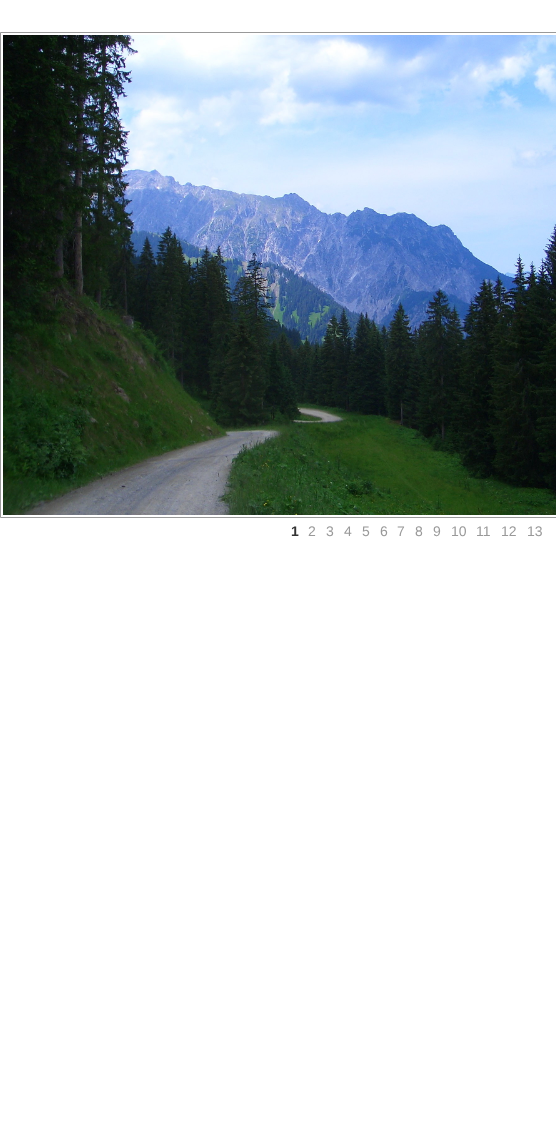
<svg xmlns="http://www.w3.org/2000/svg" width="556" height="1134">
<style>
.a{font:bold 14px Liberation Sans;fill:#333}
.b{font:14px Liberation Sans;fill:#999}
</style>
<rect width="100%" height="100%" fill="#fff"/>
<path fill="none" stroke="#999" d="M0.5 32.5h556v485H0.5z"/>
<image href="1.png" x="3" y="35" width="553" height="480"/>
<text class="a" x="291" y="536">1</text>
<text class="b" x="308" y="536">2</text>
<text class="b" x="326" y="536">3</text>
<text class="b" x="344" y="536">4</text>
<text class="b" x="362" y="536">5</text>
<text class="b" x="380" y="536">6</text>
<text class="b" x="397" y="536">7</text>
<text class="b" x="415" y="536">8</text>
<text class="b" x="433" y="536">9</text>
<text class="b" x="451" y="536">10</text>
<text class="b" x="476" y="536">11</text>
<text class="b" x="501" y="536">12</text>
<text class="b" x="527" y="536">13</text>
</svg>
